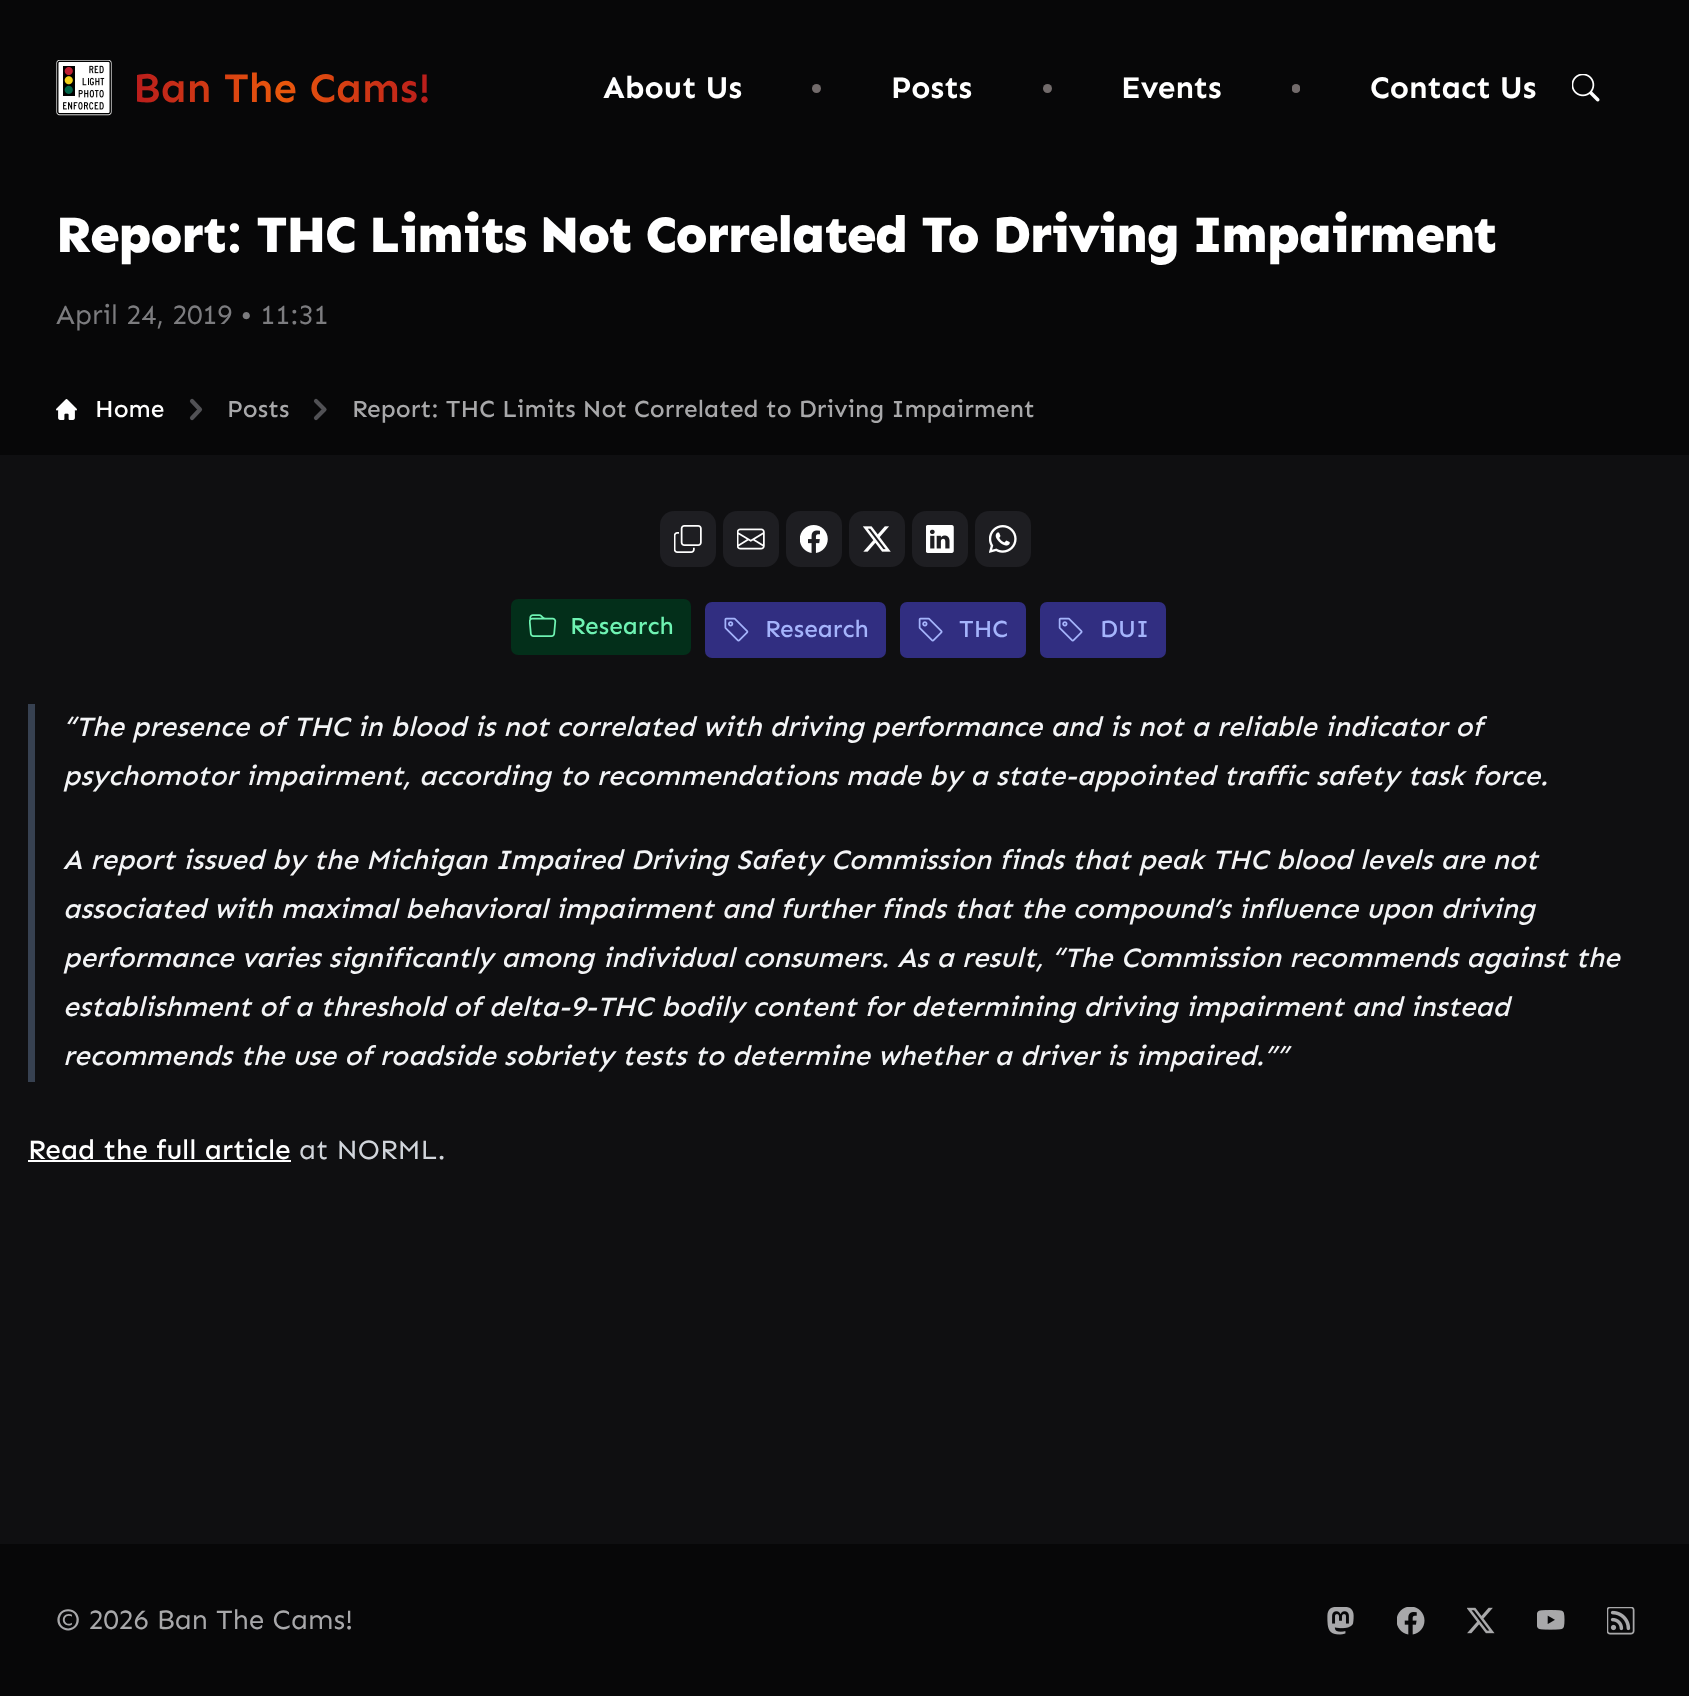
<svg xmlns="http://www.w3.org/2000/svg" width="1689" height="1696">
<style>
.a{font:600 42px Sen;fill:url(#g1)}
.b{font:bold 31.5px Sen;fill:#fff}
.c{font:800 52.5px Sen;letter-spacing:-1.3px;fill:#fff}
.d{font:28px Sen;fill:#7c7c7f}
.e{font:500 24.5px Sen;fill:#fff}
.f{font:500 24.5px Sen;fill:#a8a8aa}
.g{font:500 24.5px Sen;fill:#6ff3b3}
.h{font:500 24.5px Sen;fill:#a5b4fc}
.i{font:italic 500 28px Sen;fill:#f3f4f6}
.j{font:500 28px Sen;fill:#fff}
.k{font:28px Sen;fill:#d1d5db}
.l{font:28px Sen;fill:#a8a8aa}
</style>
<defs>
<clipPath id="clip1"><path d="M1292 84h8v9H1292z"/></clipPath>
<linearGradient id="g1" gradientUnits="userSpaceOnUse" x1="133" y1="88" x2="431" y2="87"><stop offset="0" stop-color="#b91c1c"/><stop offset="0.5" stop-color="#ea580c"/><stop offset="1" stop-color="#b91c1c"/></linearGradient>
</defs>
<rect width="100%" height="100%" fill="#070708"/>
<image href="1.png" x="56" y="60" width="56" height="56"/>
<circle fill="#726b6b" cx="816.5" cy="88.5" r="4.5"/>
<circle fill="#726b6b" cx="1047.5" cy="88.5" r="4.5"/>
<g clip-path="url(#clip1)">
<circle fill="#726b6b" cx="1296" cy="88.5" r="4.5"/>
</g>
<image href="2.png" x="1572" y="74" width="28" height="28"/>
<image href="3.png" x="56" y="399" width="21" height="21"/>
<path fill="none" stroke="#515155" stroke-width="4.2" stroke-linecap="round" stroke-linejoin="round" d="M192 418l8-8.5l-8-8.5"/>
<path fill="none" stroke="#515155" stroke-width="4.2" stroke-linecap="round" stroke-linejoin="round" d="M316 418l8.5-8.5l-8.5-8.5"/>
<path fill="#0f0f11" d="M0 455h1689v1089H0z"/>
<rect fill="#1e1e22" x="660" y="511" width="56" height="56" rx="14"/>
<image href="4.png" x="674" y="525" width="28" height="28"/>
<rect fill="#1e1e22" x="723" y="511" width="56" height="56" rx="14"/>
<image href="5.png" x="737" y="528" width="28" height="22"/>
<rect fill="#1e1e22" x="786" y="511" width="56" height="56" rx="14"/>
<image href="6.png" x="800" y="525" width="28" height="28"/>
<rect fill="#1e1e22" x="849" y="511" width="56" height="56" rx="14"/>
<image href="7.png" x="863" y="526" width="28" height="26"/>
<rect fill="#1e1e22" x="912" y="511" width="56" height="56" rx="14"/>
<image href="8.png" x="926" y="525" width="28" height="28"/>
<rect fill="#1e1e22" x="975" y="511" width="56" height="56" rx="14"/>
<image href="9.png" x="989" y="525" width="28" height="28"/>
<rect fill="#032f1a" x="511" y="599" width="180" height="56" rx="7"/>
<image href="10.png" x="529" y="614" width="28" height="23"/>
<rect fill="#312e81" x="705" y="602" width="181" height="56" rx="7"/>
<image href="11.png" x="724" y="617" width="25" height="25"/>
<rect fill="#312e81" x="900" y="602" width="126" height="56" rx="7"/>
<image href="12.png" x="918" y="617" width="25" height="25"/>
<rect fill="#312e81" x="1040" y="602" width="126" height="56" rx="7"/>
<image href="12.png" x="1058" y="617" width="25" height="25"/>
<path fill="#374151" d="M28 704h7v378H28z"/>
<path fill="#fff" d="M28 1160h263v2H28z"/>
<image href="13.png" x="1327" y="1607" width="27" height="28"/>
<image href="14.png" x="1397" y="1607" width="28" height="28"/>
<image href="15.png" x="1467" y="1607" width="28" height="27"/>
<image href="16.png" x="1537" y="1610" width="28" height="20"/>
<image href="17.png" x="1607" y="1607" width="28" height="28"/>
<text class="a" x="133" y="102">Ban The Cams!</text>
<text class="b" x="603" y="98">About Us</text>
<text class="b" x="891" y="98">Posts</text>
<text class="b" x="1121" y="98">Events</text>
<text class="b" x="1370" y="98">Contact Us</text>
<text class="c" x="56" y="252">Report: THC Limits Not Correlated To Driving Impairment</text>
<text class="d" x="56" y="324">April 24, 2019 • 11:31</text>
<text class="e" x="95" y="417">Home</text>
<text class="f" x="227" y="417">Posts</text>
<text class="f" x="352" y="417">Report: THC Limits Not Correlated to Driving Impairment</text>
<text class="g" x="570" y="634">Research</text>
<text class="h" x="765" y="637">Research</text>
<text class="h" x="959" y="637">THC</text>
<text class="h" x="1100" y="637">DUI</text>
<text class="i" x="63" y="736">“The presence of THC in blood is not correlated with driving performance and is not a reliable indicator of</text>
<text class="i" x="63" y="785">psychomotor impairment, according to recommendations made by a state-appointed traffic safety task force.</text>
<text class="i" x="63" y="869">A report issued by the Michigan Impaired Driving Safety Commission finds that peak THC blood levels are not</text>
<text class="i" x="63" y="918">associated with maximal behavioral impairment and further finds that the compound’s influence upon driving</text>
<text class="i" x="63" y="967">performance varies significantly among individual consumers. As a result, “The Commission recommends against the</text>
<text class="i" x="63" y="1016">establishment of a threshold of delta-9-THC bodily content for determining driving impairment and instead</text>
<text class="i" x="63" y="1065">recommends the use of roadside sobriety tests to determine whether a driver is impaired.””</text>
<text class="j" x="28" y="1159">Read the full article</text>
<text class="k" x="299" y="1159">at NORML.</text>
<text class="l" x="56" y="1629">© 2026 Ban The Cams!</text>
</svg>
